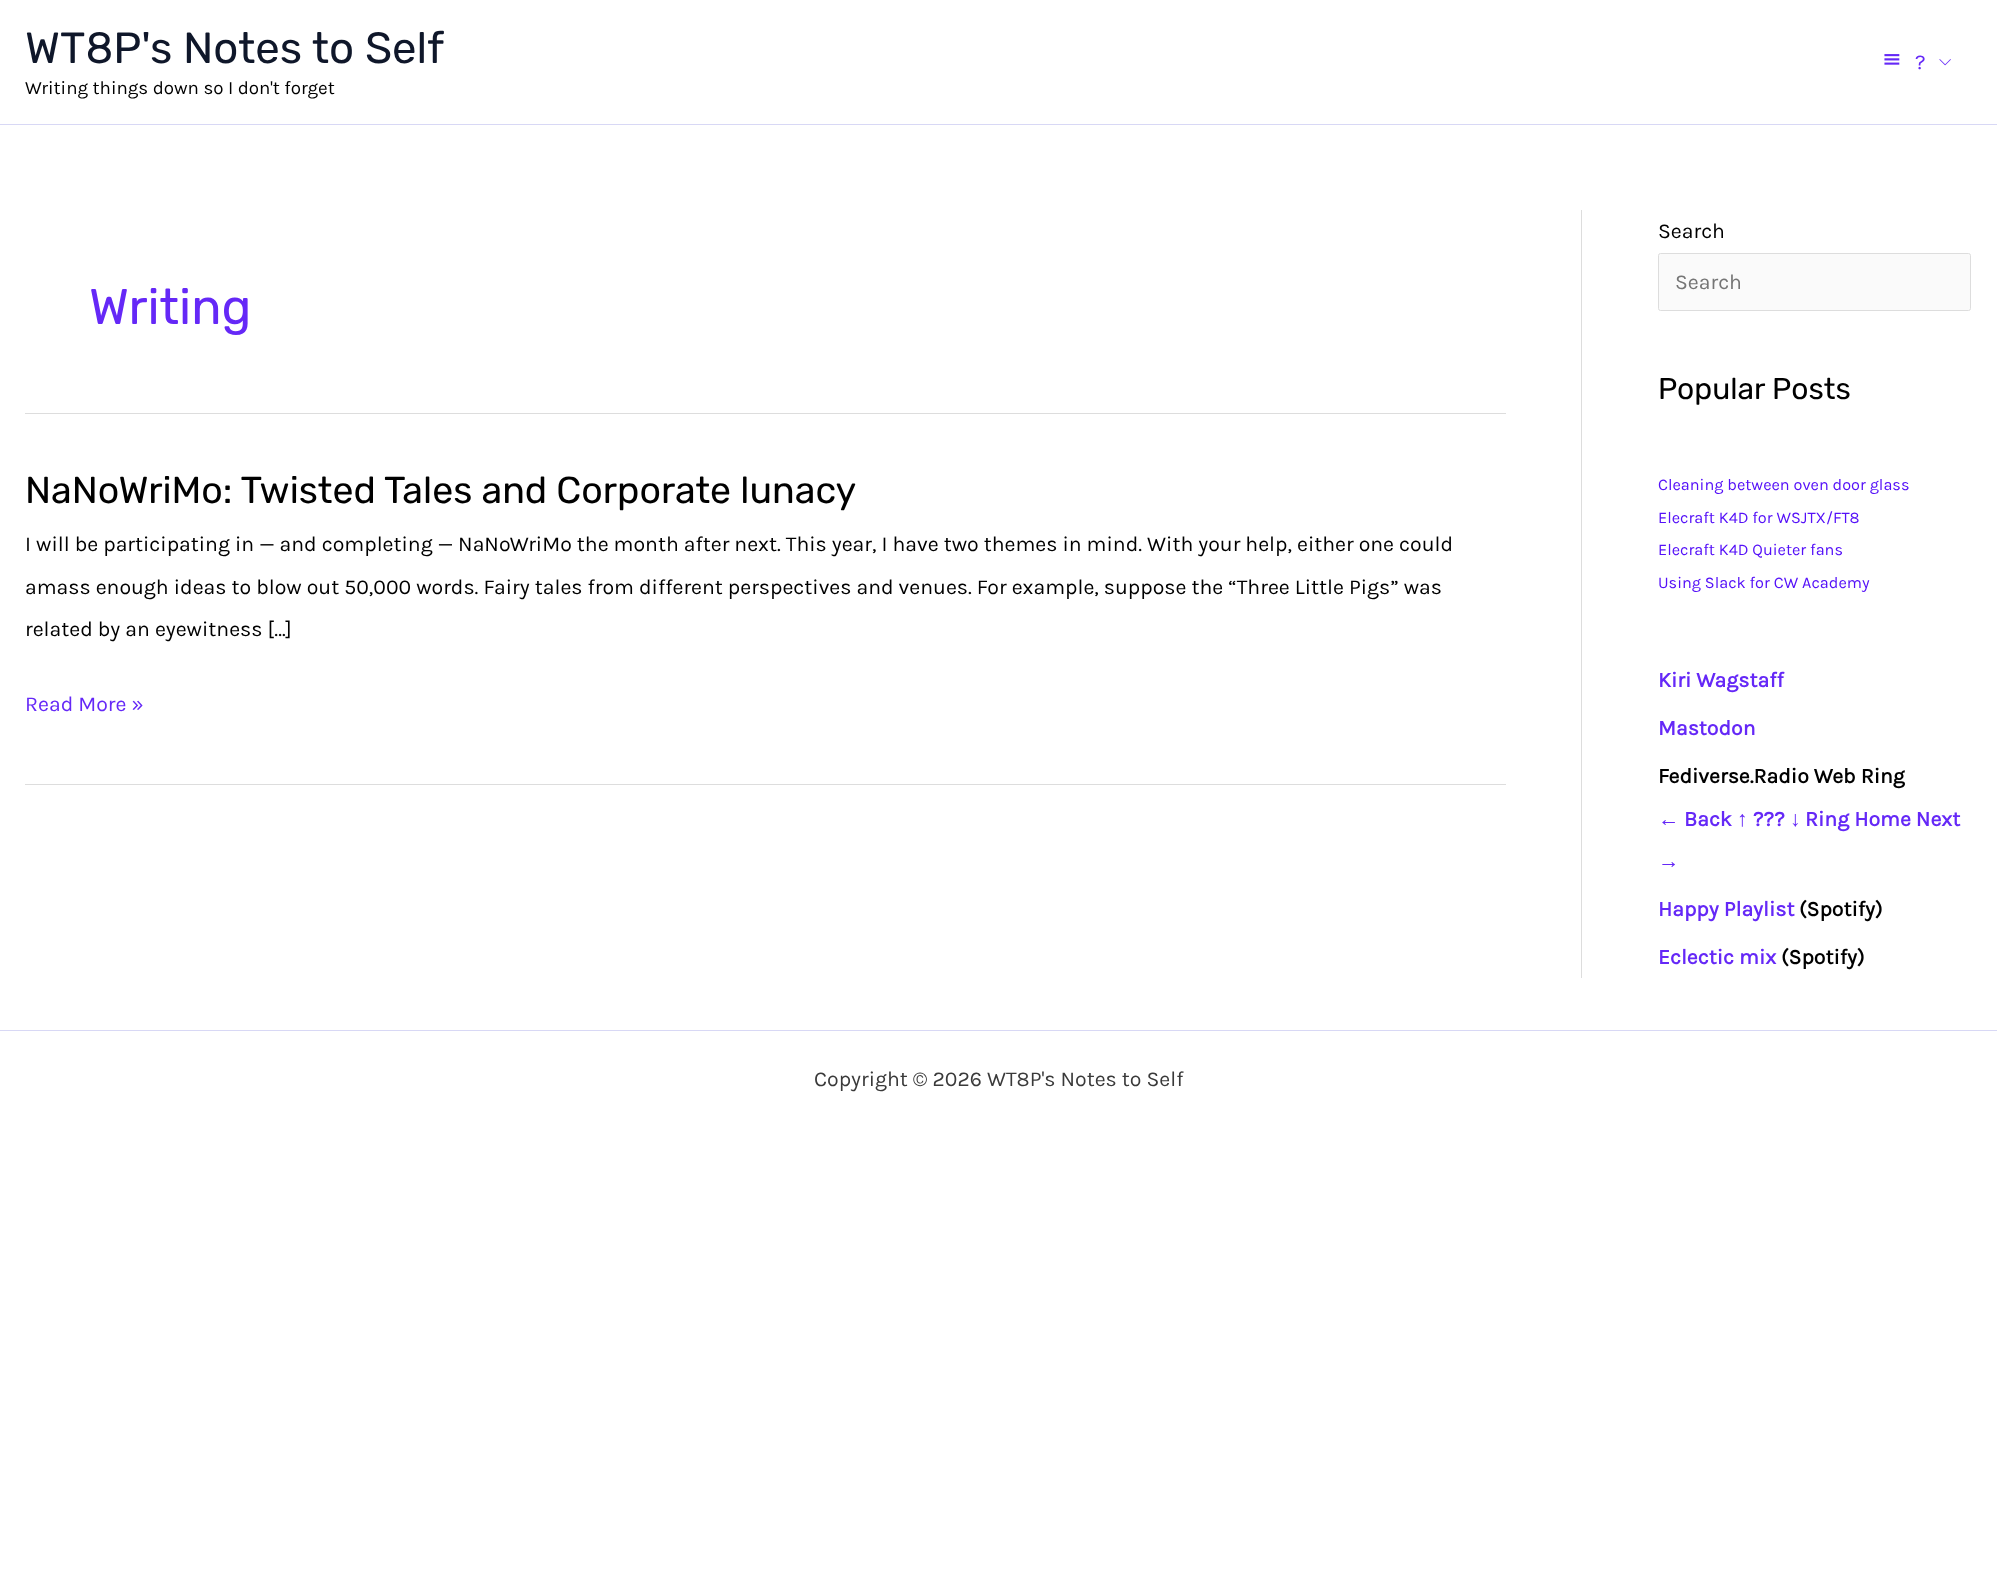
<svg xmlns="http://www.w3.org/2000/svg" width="1997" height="1573">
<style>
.a{font:43.75px Rubik;fill:#0f172a}
.b{font:18.75px Karla;fill:#000}
.c{font:21.25px Karla;fill:#6528f7}
.d{font:50px Rubik;fill:#6528f7}
.e{font:37.5px Rubik;fill:#000}
.f{font:21.25px Karla;fill:#000}
.g{font:21.25px Karla;fill:#757575}
.h{font:30px Rubik;fill:#000}
.i{font:16.25px Karla;fill:#5511f8}
.j{font:bold 21.25px Karla;fill:#6528f7}
.k{font:bold 21.25px Karla;fill:#000}
.l{font:bold 21.25px Liberation Sans;fill:#6528f7}
.m{font:21.25px Karla;fill:#3a3a3a}
</style>
<rect width="100%" height="100%" fill="#fff"/>
<path fill="#d8d8f5" d="M0 124h1997v1H0z"/>
<image href="1.png" x="1884" y="54" width="16" height="11"/>
<image href="2.png" x="1939" y="59" width="12" height="7"/>
<path fill="#ddd" d="M25 413h1481v1H25z"/>
<path fill="#ddd" d="M25 784h1481v1H25z"/>
<path fill="#ddd" d="M1581 210h1v768H1581z"/>
<rect fill="#fafafa" stroke="#ddd" x="1658.5" y="253.5" width="312" height="57" rx="2"/>
<path fill="#d8d8f5" d="M0 1030h1997v1H0z"/>
<text class="a" x="25" y="63">WT8P's Notes to Self</text>
<text class="b" x="25" y="94">Writing things down so I don't forget</text>
<text class="c" x="1915" y="69">?</text>
<text class="d" x="89" y="324">Writing</text>
<text class="e" x="25" y="503">NaNoWriMo: Twisted Tales and Corporate lunacy</text>
<text class="f" x="25" y="551">I will be participating in — and completing — NaNoWriMo the month after next. This year, I have two themes in mind. With your help, either one could</text>
<text class="f" x="25" y="594">amass enough ideas to blow out 50,000 words. Fairy tales from different perspectives and venues. For example, suppose the “Three Little Pigs” was</text>
<text class="f" x="25" y="636">related by an eyewitness […]</text>
<text class="c" x="25" y="711">Read More »</text>
<text class="f" x="1658" y="238">Search</text>
<text class="g" x="1675" y="289">Search</text>
<text class="h" x="1658" y="399">Popular Posts</text>
<text class="i" x="1658" y="490">Cleaning between oven door glass</text>
<text class="i" x="1658" y="523">Elecraft K4D for WSJTX/FT8</text>
<text class="i" x="1658" y="555">Elecraft K4D Quieter fans</text>
<text class="i" x="1658" y="588">Using Slack for CW Academy</text>
<text class="j" x="1658" y="687">Kiri Wagstaff</text>
<text class="j" x="1658" y="735">Mastodon</text>
<text class="k" x="1658" y="783">Fediverse.Radio Web Ring</text>
<text class="l" x="1658" y="826">←</text>
<text class="j" x="1684" y="826">Back</text>
<text class="l" x="1737" y="826">↑</text>
<text class="j" x="1753" y="826">???</text>
<text class="l" x="1790" y="826">↓</text>
<text class="j" x="1805" y="826">Ring Home Next</text>
<text class="l" x="1658" y="868">→</text>
<text class="j" x="1658" y="916">Happy Playlist</text>
<text class="k" x="1799" y="916">(Spotify)</text>
<text class="j" x="1658" y="964">Eclectic mix</text>
<text class="k" x="1781" y="964">(Spotify)</text>
<text class="m" x="814" y="1086">Copyright © 2026 WT8P's Notes to Self</text>
</svg>
